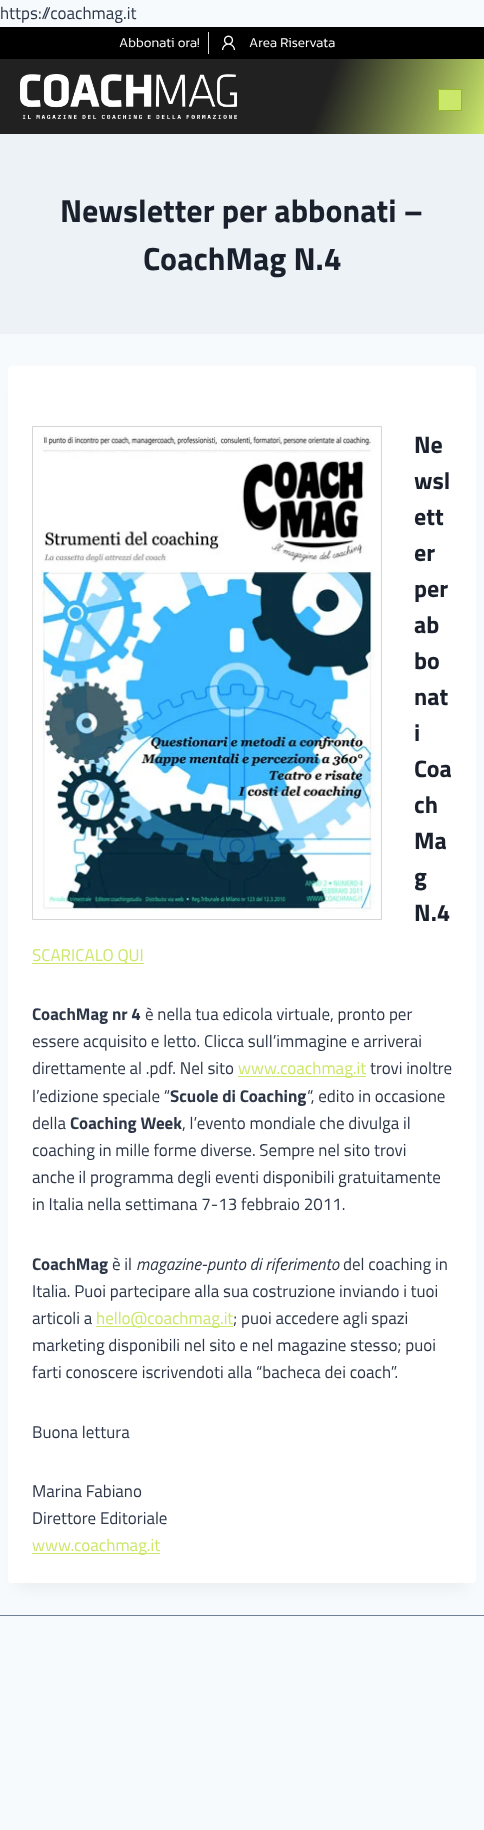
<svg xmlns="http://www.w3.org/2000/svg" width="484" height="1830">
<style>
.a{font:17px Titillium Web;fill:#2d3748}
.b{font:300 13.5px Kanit;fill:#fff}
.c{font:bold 32px Titillium Web;fill:#1a202c}
.d{font:bold 24px Titillium Web;fill:#1a202c}
.e{font:17px Titillium Web;fill:#cbe86b}
.f{font:bold 17px Titillium Web;fill:#2d3748}
.g{font:italic 17px Titillium Web;fill:#2d3748}
</style>
<defs>
<linearGradient id="g1" gradientUnits="userSpaceOnUse" x1="16" y1="14" x2="468" y2="179"><stop offset="0.66" stop-color="#212121"/><stop offset="1" stop-color="#cbe86b"/></linearGradient>
</defs>
<rect width="100%" height="100%" fill="#f7fafc"/>
<path fill="#000" d="M0 27h484v32H0z"/>
<path fill="#ddd" d="M208 32h1v22H208z"/>
<image href="1.png" x="222" y="35" width="13" height="15"/>
<path fill="url(#g1)" d="M0 59h484v75H0z"/>
<image href="2.png" x="20" y="74" width="217" height="45"/>
<path fill="#cbe86b" stroke="#98b82b" d="M438.5 89.5h23v21H438.5z"/>
<path fill="#edf2f7" d="M0 134h484v200H0z"/>
<path fill="#0000000d" filter="blur(7.5px)" d="M18 391h448v1197H18z"/>
<rect fill="#fff" x="8" y="366" width="468" height="1217" rx="4"/>
<path fill="none" stroke="#d5d5d5" d="M32.5 426.5h349v493H32.5z"/>
<image href="3.png" x="41" y="435" width="334" height="477"/>
<path fill="#cbe86b" d="M32 963h112v1H32z"/>
<path fill="#cbe86b" d="M238 1076h128v1H238z"/>
<path fill="#cbe86b" d="M96 1326h137v1H96z"/>
<path fill="#cbe86b" d="M32 1553h128v1H32z"/>
<path fill="#718096" d="M0 1615h484v1H0z"/>
<text class="a" x="0" y="19">https://coachmag.it</text>
<text class="b" x="119" y="47">Abbonati ora!</text>
<text class="b" x="249" y="47">Area Riservata</text>
<text class="c" x="60" y="222">Newsletter per abbonati –</text>
<text class="c" x="143" y="270">CoachMag N.4</text>
<text class="d" x="414" y="453">Ne</text>
<text class="d" x="414" y="489">wsl</text>
<text class="d" x="414" y="525">ett</text>
<text class="d" x="414" y="561">er</text>
<text class="d" x="414" y="597">per</text>
<text class="d" x="414" y="633">ab</text>
<text class="d" x="414" y="669">bo</text>
<text class="d" x="414" y="705">nat</text>
<text class="d" x="414" y="741">i</text>
<text class="d" x="414" y="777">Coa</text>
<text class="d" x="414" y="813">ch</text>
<text class="d" x="414" y="849">Ma</text>
<text class="d" x="414" y="885">g</text>
<text class="d" x="414" y="921">N.4</text>
<text class="e" x="32" y="961">SCARICALO QUI</text>
<text class="f" x="32" y="1020">CoachMag nr 4</text>
<text class="a" x="145" y="1020">è nella tua edicola virtuale, pronto per</text>
<text class="a" x="32" y="1047">essere acquisito e letto. Clicca sull’immagine e arriverai</text>
<text class="a" x="32" y="1074">direttamente al .pdf. Nel sito</text>
<text class="e" x="238" y="1074">www.coachmag.it</text>
<text class="a" x="370" y="1074">trovi inoltre</text>
<text class="a" x="32" y="1102">l’edizione speciale “</text>
<text class="f" x="170" y="1102">Scuole di Coaching</text>
<text class="a" x="307" y="1102">“, edito in occasione</text>
<text class="a" x="32" y="1129">della</text>
<text class="f" x="70" y="1129">Coaching Week</text>
<text class="a" x="182" y="1129">, l’evento mondiale che divulga il</text>
<text class="a" x="32" y="1156">coaching in mille forme diverse. Sempre nel sito trovi</text>
<text class="a" x="32" y="1183">anche il programma degli eventi disponibili gratuitamente</text>
<text class="a" x="32" y="1210">in Italia nella settimana 7-13 febbraio 2011.</text>
<text class="f" x="32" y="1270">CoachMag</text>
<text class="a" x="112" y="1270">è il</text>
<text class="g" x="136" y="1270">magazine-punto di riferimento</text>
<text class="a" x="343" y="1270">del coaching in</text>
<text class="a" x="32" y="1297">Italia. Puoi partecipare alla sua costruzione inviando i tuoi</text>
<text class="a" x="32" y="1324">articoli a</text>
<text class="e" x="96" y="1324">hello@coachmag.it</text>
<text class="a" x="233" y="1324">; puoi accedere agli spazi</text>
<text class="a" x="32" y="1351">marketing disponibili nel sito e nel magazine stesso; puoi</text>
<text class="a" x="32" y="1378">farti conoscere iscrivendoti alla “bacheca dei coach”.</text>
<text class="a" x="32" y="1438">Buona lettura</text>
<text class="a" x="32" y="1497">Marina Fabiano</text>
<text class="a" x="32" y="1524">Direttore Editoriale</text>
<text class="e" x="32" y="1551">www.coachmag.it</text>
</svg>
